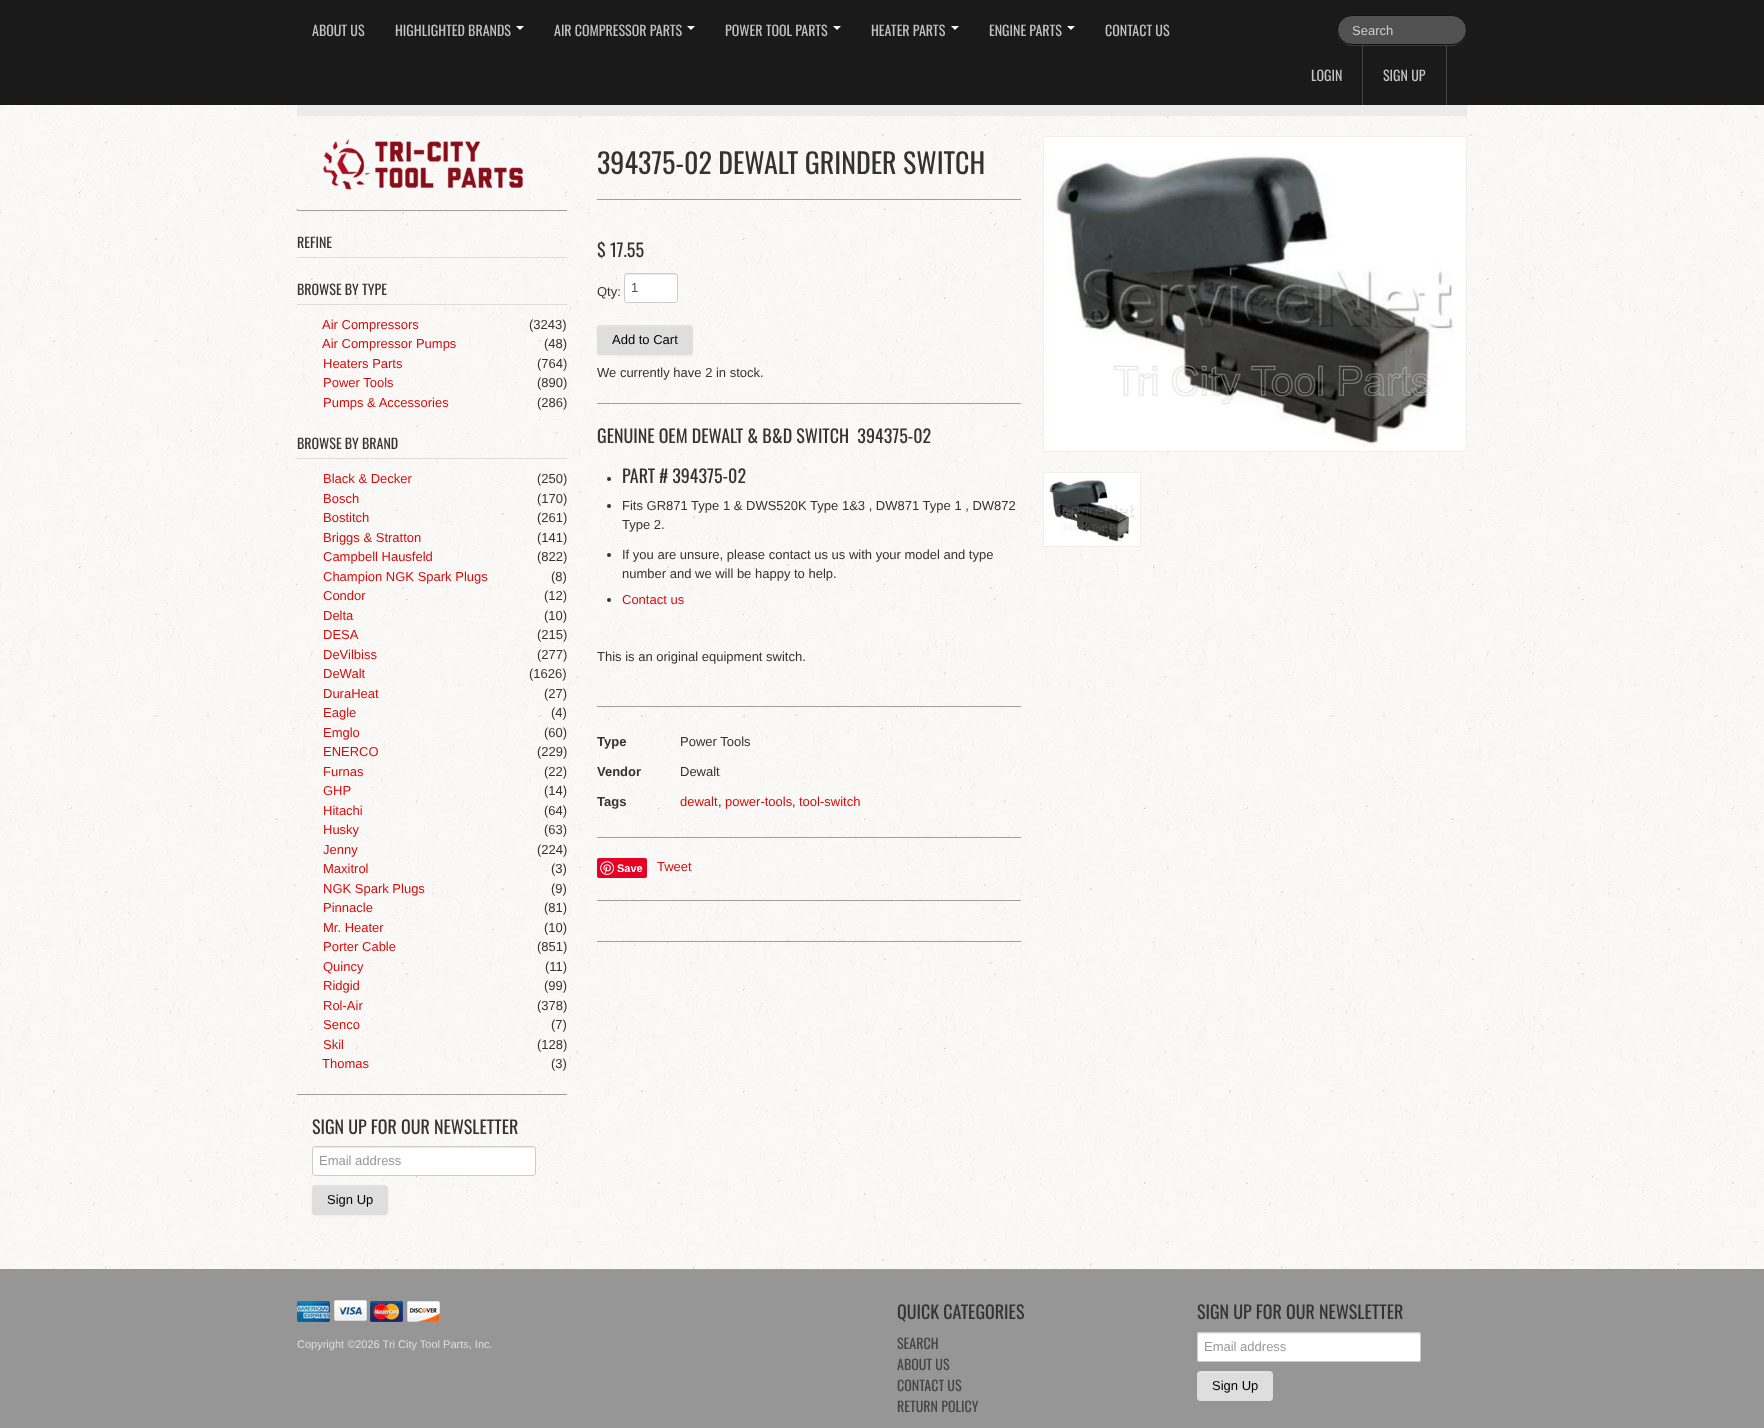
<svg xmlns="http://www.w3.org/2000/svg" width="1764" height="1428">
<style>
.a{font:14px Oswald;fill:#c2c2c2}
.b{font:13px Liberation Sans;fill:#ccc}
.c{font:14px Oswald;fill:#333}
.d{font:13px Liberation Sans;fill:#d60d0d}
.e{font:13px Liberation Sans;fill:#333}
.f{font:18px Oswald;fill:#333}
.g{font:13px Liberation Sans;fill:#999}
.h{font:13px Liberation Sans;fill:#000}
.i{font:28px Oswald;fill:#333}
.j{font:13px Liberation Sans;fill:#555}
.k{font:bold 13px Liberation Sans;fill:#333}
.l{font:bold 11px Liberation Sans;fill:#fff}
.m{font:11px Liberation Sans;fill:#dedede}
.n{font:14px Oswald;fill:#444}
</style>
<rect width="100%" height="100%" fill="#fff"/>
<image href="1.png" x="0" y="105" width="1764" height="1164"/>
<path fill="#1a1a1a" d="M0 0h1764v105H0z"/>
<path fill="#fff" d="M516 26h8l-4 4z"/>
<path fill="#fff" d="M687 26h8l-4 4z"/>
<path fill="#fff" d="M833 26h8l-4 4z"/>
<path fill="#fff" d="M951 26h8l-4 4z"/>
<path fill="#fff" d="M1067 26h8l-4 4z"/>
<path fill="#3c3c3c" d="M1337 30v1c0 8 7 15 15 15h100c8 0 15-7 15-15v-1c0 9-7 15-15 15h-100c-8 0-15-6-15-15z"/>
<rect fill="#515151" stroke="#111" x="1337.5" y="15.5" width="129" height="29" rx="14.5"/>
<path fill="#444" d="M1362 45h1v60H1362z"/>
<path fill="#444" d="M1446 45h1v60H1446z"/>
<path fill="#ebebeb" d="M297 105h1170v11H297z"/>
<image href="2.png" x="323" y="139" width="200" height="51"/>
<path fill="#9e9e9e" d="M297 210h270v1H297z"/>
<path fill="#ddd" d="M297 257h270v1H297z"/>
<path fill="#ddd" d="M297 304h270v1H297z"/>
<path fill="#ddd" d="M297 458h270v1H297z"/>
<path fill="#9e9e9e" d="M297 1094h270v1H297z"/>
<rect fill="#fff" x="312" y="1146" width="224" height="30" rx="3"/>
<path fill="#ececec" d="M315 1148h218c1 0 2 1 2 2c0-1 0-3-2-3h-218l-1 1l-1 2c0-1 1-2 2-2z"/>
<rect fill="none" stroke="#ccc" x="312.5" y="1146.5" width="223" height="29" rx="2.5"/>
<rect fill="#0000000d" filter="blur(1px)" x="312" y="1186" width="76" height="30" rx="4"/>
<rect fill="#dedede" x="312" y="1185" width="76" height="30" rx="4"/>
<path fill="#e5e5e5" d="M316 1187h68c2 0 3 1 3 3c0-7-10-4-14-4h-46c-4 0-14-3-14 4c0-2 1-3 3-3z"/>
<rect fill="none" stroke="#dedede" x="312.5" y="1185.5" width="75" height="29" rx="3.5"/>
<path fill="#9e9e9e" d="M597 199h424v1H597z"/>
<rect fill="#fff" x="624" y="273" width="54" height="30" rx="3"/>
<path fill="#ececec" d="M627 275h48c1 0 2 1 2 2c0-5-6-3-10-3h-32c-4 0-10-2-10 3c0-1 1-2 2-2z"/>
<rect fill="none" stroke="#ccc" x="624.5" y="273.5" width="53" height="29" rx="2.5"/>
<rect fill="#0000000d" filter="blur(1px)" x="597" y="326" width="96" height="30" rx="4"/>
<rect fill="#dedede" x="597" y="325" width="96" height="30" rx="4"/>
<path fill="#e5e5e5" d="M601 327h88c2 0 3 1 3 3c0-8-14-4-18-4h-58c-4 0-18-4-18 4c0-2 1-3 3-3z"/>
<rect fill="none" stroke="#dedede" x="597.5" y="325.5" width="95" height="29" rx="3.5"/>
<path fill="#9e9e9e" d="M597 403h424v1H597z"/>
<circle fill="#333" cx="609" cy="479" r="2"/>
<circle fill="#333" cx="609" cy="506" r="2"/>
<circle fill="#333" cx="609" cy="555" r="2"/>
<circle fill="#333" cx="609" cy="600" r="2"/>
<path fill="#9e9e9e" d="M597 706h424v1H597z"/>
<path fill="#9e9e9e" d="M597 837h424v1H597z"/>
<rect fill="#e60023" x="597" y="858" width="50" height="20" rx="2"/>
<image href="3.png" x="600" y="861" width="14" height="14"/>
<path fill="#9e9e9e" d="M597 900h424v1H597z"/>
<path fill="#9e9e9e" d="M597 941h424v1H597z"/>
<path fill="#fff" stroke="#eee" d="M1043.5 136.5h423v315H1043.5z"/>
<image href="4.png" x="1048" y="155" width="407" height="292"/>
<path fill="#fff" stroke="#eee" d="M1043.5 472.5h97v74H1043.5z"/>
<image href="5.png" x="1048" y="479" width="87" height="63"/>
<path fill="#969696" d="M0 1269h1764v159H0z"/>
<path fill="#9e9e9e" d="M297 1269h1170v1H297z"/>
<image href="6.png" x="297" y="1301" width="33" height="21"/>
<image href="7.png" x="334" y="1300" width="33" height="21"/>
<image href="8.png" x="370" y="1301" width="33" height="21"/>
<image href="9.png" x="407" y="1301" width="33" height="21"/>
<rect fill="#fff" x="1197" y="1332" width="224" height="30" rx="3"/>
<path fill="#ececec" d="M1200 1334h218c1 0 2 1 2 2c0-1 0-3-2-3h-218l-1 1l-1 2c0-1 1-2 2-2z"/>
<rect fill="none" stroke="#ccc" x="1197.5" y="1332.5" width="223" height="29" rx="2.5"/>
<rect fill="#dedede" x="1197" y="1371" width="76" height="30" rx="4"/>
<path fill="#e5e5e5" d="M1201 1373h68c2 0 3 1 3 3c0-7-10-4-14-4h-46c-4 0-14-3-14 4c0-2 1-3 3-3z"/>
<rect fill="none" stroke="#dedede" x="1197.5" y="1371.5" width="75" height="29" rx="3.5"/>
<text class="a" x="312" y="36">ABOUT US</text>
<text class="a" x="395" y="36">HIGHLIGHTED BRANDS</text>
<text class="a" x="554" y="36">AIR COMPRESSOR PARTS</text>
<text class="a" x="725" y="36">POWER TOOL PARTS</text>
<text class="a" x="871" y="36">HEATER PARTS</text>
<text class="a" x="989" y="36">ENGINE PARTS</text>
<text class="a" x="1105" y="36">CONTACT US</text>
<text class="b" x="1352" y="35">Search</text>
<text class="a" x="1311" y="81">LOGIN</text>
<text class="a" x="1383" y="81">SIGN UP</text>
<text class="c" x="297" y="248">REFINE</text>
<text class="c" x="297" y="295">BROWSE BY TYPE</text>
<text class="d" x="322" y="329">Air Compressors</text>
<text class="e" x="529" y="329">(3243)</text>
<text class="d" x="322" y="348">Air Compressor Pumps</text>
<text class="e" x="544" y="348">(48)</text>
<text class="d" x="323" y="368">Heaters Parts</text>
<text class="e" x="537" y="368">(764)</text>
<text class="d" x="323" y="387">Power Tools</text>
<text class="e" x="537" y="387">(890)</text>
<text class="d" x="323" y="407">Pumps &amp; Accessories</text>
<text class="e" x="537" y="407">(286)</text>
<text class="c" x="297" y="449">BROWSE BY BRAND</text>
<text class="d" x="323" y="483">Black &amp; Decker</text>
<text class="e" x="537" y="483">(250)</text>
<text class="d" x="323" y="503">Bosch</text>
<text class="e" x="537" y="503">(170)</text>
<text class="d" x="323" y="522">Bostitch</text>
<text class="e" x="537" y="522">(261)</text>
<text class="d" x="323" y="542">Briggs &amp; Stratton</text>
<text class="e" x="537" y="542">(141)</text>
<text class="d" x="323" y="561">Campbell Hausfeld</text>
<text class="e" x="537" y="561">(822)</text>
<text class="d" x="323" y="581">Champion NGK Spark Plugs</text>
<text class="e" x="551" y="581">(8)</text>
<text class="d" x="323" y="600">Condor</text>
<text class="e" x="544" y="600">(12)</text>
<text class="d" x="323" y="620">Delta</text>
<text class="e" x="544" y="620">(10)</text>
<text class="d" x="323" y="639">DESA</text>
<text class="e" x="537" y="639">(215)</text>
<text class="d" x="323" y="659">DeVilbiss</text>
<text class="e" x="537" y="659">(277)</text>
<text class="d" x="323" y="678">DeWalt</text>
<text class="e" x="529" y="678">(1626)</text>
<text class="d" x="323" y="698">DuraHeat</text>
<text class="e" x="544" y="698">(27)</text>
<text class="d" x="323" y="717">Eagle</text>
<text class="e" x="551" y="717">(4)</text>
<text class="d" x="323" y="737">Emglo</text>
<text class="e" x="544" y="737">(60)</text>
<text class="d" x="323" y="756">ENERCO</text>
<text class="e" x="537" y="756">(229)</text>
<text class="d" x="323" y="776">Furnas</text>
<text class="e" x="544" y="776">(22)</text>
<text class="d" x="323" y="795">GHP</text>
<text class="e" x="544" y="795">(14)</text>
<text class="d" x="323" y="815">Hitachi</text>
<text class="e" x="544" y="815">(64)</text>
<text class="d" x="323" y="834">Husky</text>
<text class="e" x="544" y="834">(63)</text>
<text class="d" x="323" y="854">Jenny</text>
<text class="e" x="537" y="854">(224)</text>
<text class="d" x="323" y="873">Maxitrol</text>
<text class="e" x="551" y="873">(3)</text>
<text class="d" x="323" y="893">NGK Spark Plugs</text>
<text class="e" x="551" y="893">(9)</text>
<text class="d" x="323" y="912">Pinnacle</text>
<text class="e" x="544" y="912">(81)</text>
<text class="d" x="323" y="932">Mr. Heater</text>
<text class="e" x="544" y="932">(10)</text>
<text class="d" x="323" y="951">Porter Cable</text>
<text class="e" x="537" y="951">(851)</text>
<text class="d" x="323" y="971">Quincy</text>
<text class="e" x="545" y="971">(11)</text>
<text class="d" x="323" y="990">Ridgid</text>
<text class="e" x="544" y="990">(99)</text>
<text class="d" x="323" y="1010">Rol-Air</text>
<text class="e" x="537" y="1010">(378)</text>
<text class="d" x="323" y="1029">Senco</text>
<text class="e" x="551" y="1029">(7)</text>
<text class="d" x="323" y="1049">Skil</text>
<text class="e" x="537" y="1049">(128)</text>
<text class="d" x="322" y="1068">Thomas</text>
<text class="e" x="551" y="1068">(3)</text>
<text class="f" x="312" y="1134">SIGN UP FOR OUR NEWSLETTER</text>
<text class="g" x="319" y="1165">Email address</text>
<text class="h" x="327" y="1204">Sign Up</text>
<text class="i" x="597" y="174">394375-02 DEWALT GRINDER SWITCH</text>
<text class="f" x="597" y="257">$ 17.55</text>
<text class="e" x="597" y="296">Qty:</text>
<text class="j" x="631" y="292">1</text>
<text class="h" x="612" y="344">Add to Cart</text>
<text class="e" x="597" y="377">We currently have 2 in stock.</text>
<text class="f" xml:space="preserve" x="597" y="443">GENUINE OEM DEWALT &amp; B&amp;D SWITCH  394375-02</text>
<text class="f" x="622" y="483">PART # 394375-02</text>
<text class="e" x="622" y="510">Fits GR871 Type 1 &amp; DWS520K Type 1&amp;3 , DW871 Type 1 , DW872</text>
<text class="e" x="622" y="529">Type 2.</text>
<text class="e" x="622" y="559">If you are unsure, please contact us us with your model and type</text>
<text class="e" x="622" y="578">number and we will be happy to help.</text>
<text class="d" x="622" y="604">Contact us</text>
<text class="e" x="597" y="661">This is an original equipment switch.</text>
<text class="k" x="597" y="746">Type</text>
<text class="e" x="680" y="746">Power Tools</text>
<text class="k" x="597" y="776">Vendor</text>
<text class="e" x="680" y="776">Dewalt</text>
<text class="k" x="597" y="806">Tags</text>
<text class="d" x="680" y="806">dewalt</text>
<text class="e" x="718" y="806">,</text>
<text class="d" x="725" y="806">power-tools</text>
<text class="e" x="792" y="806">,</text>
<text class="d" x="799" y="806">tool-switch</text>
<text class="l" x="617" y="872">Save</text>
<text class="d" x="657" y="871">Tweet</text>
<text class="m" x="297" y="1348">Copyright ©2026 Tri City Tool Parts, Inc.</text>
<text class="f" x="897" y="1319">QUICK CATEGORIES</text>
<text class="n" x="897" y="1349">SEARCH</text>
<text class="n" x="897" y="1370">ABOUT US</text>
<text class="n" x="897" y="1391">CONTACT US</text>
<text class="n" x="897" y="1412">RETURN POLICY</text>
<text class="f" x="1197" y="1319">SIGN UP FOR OUR NEWSLETTER</text>
<text class="g" x="1204" y="1351">Email address</text>
<text class="h" x="1212" y="1390">Sign Up</text>
</svg>
